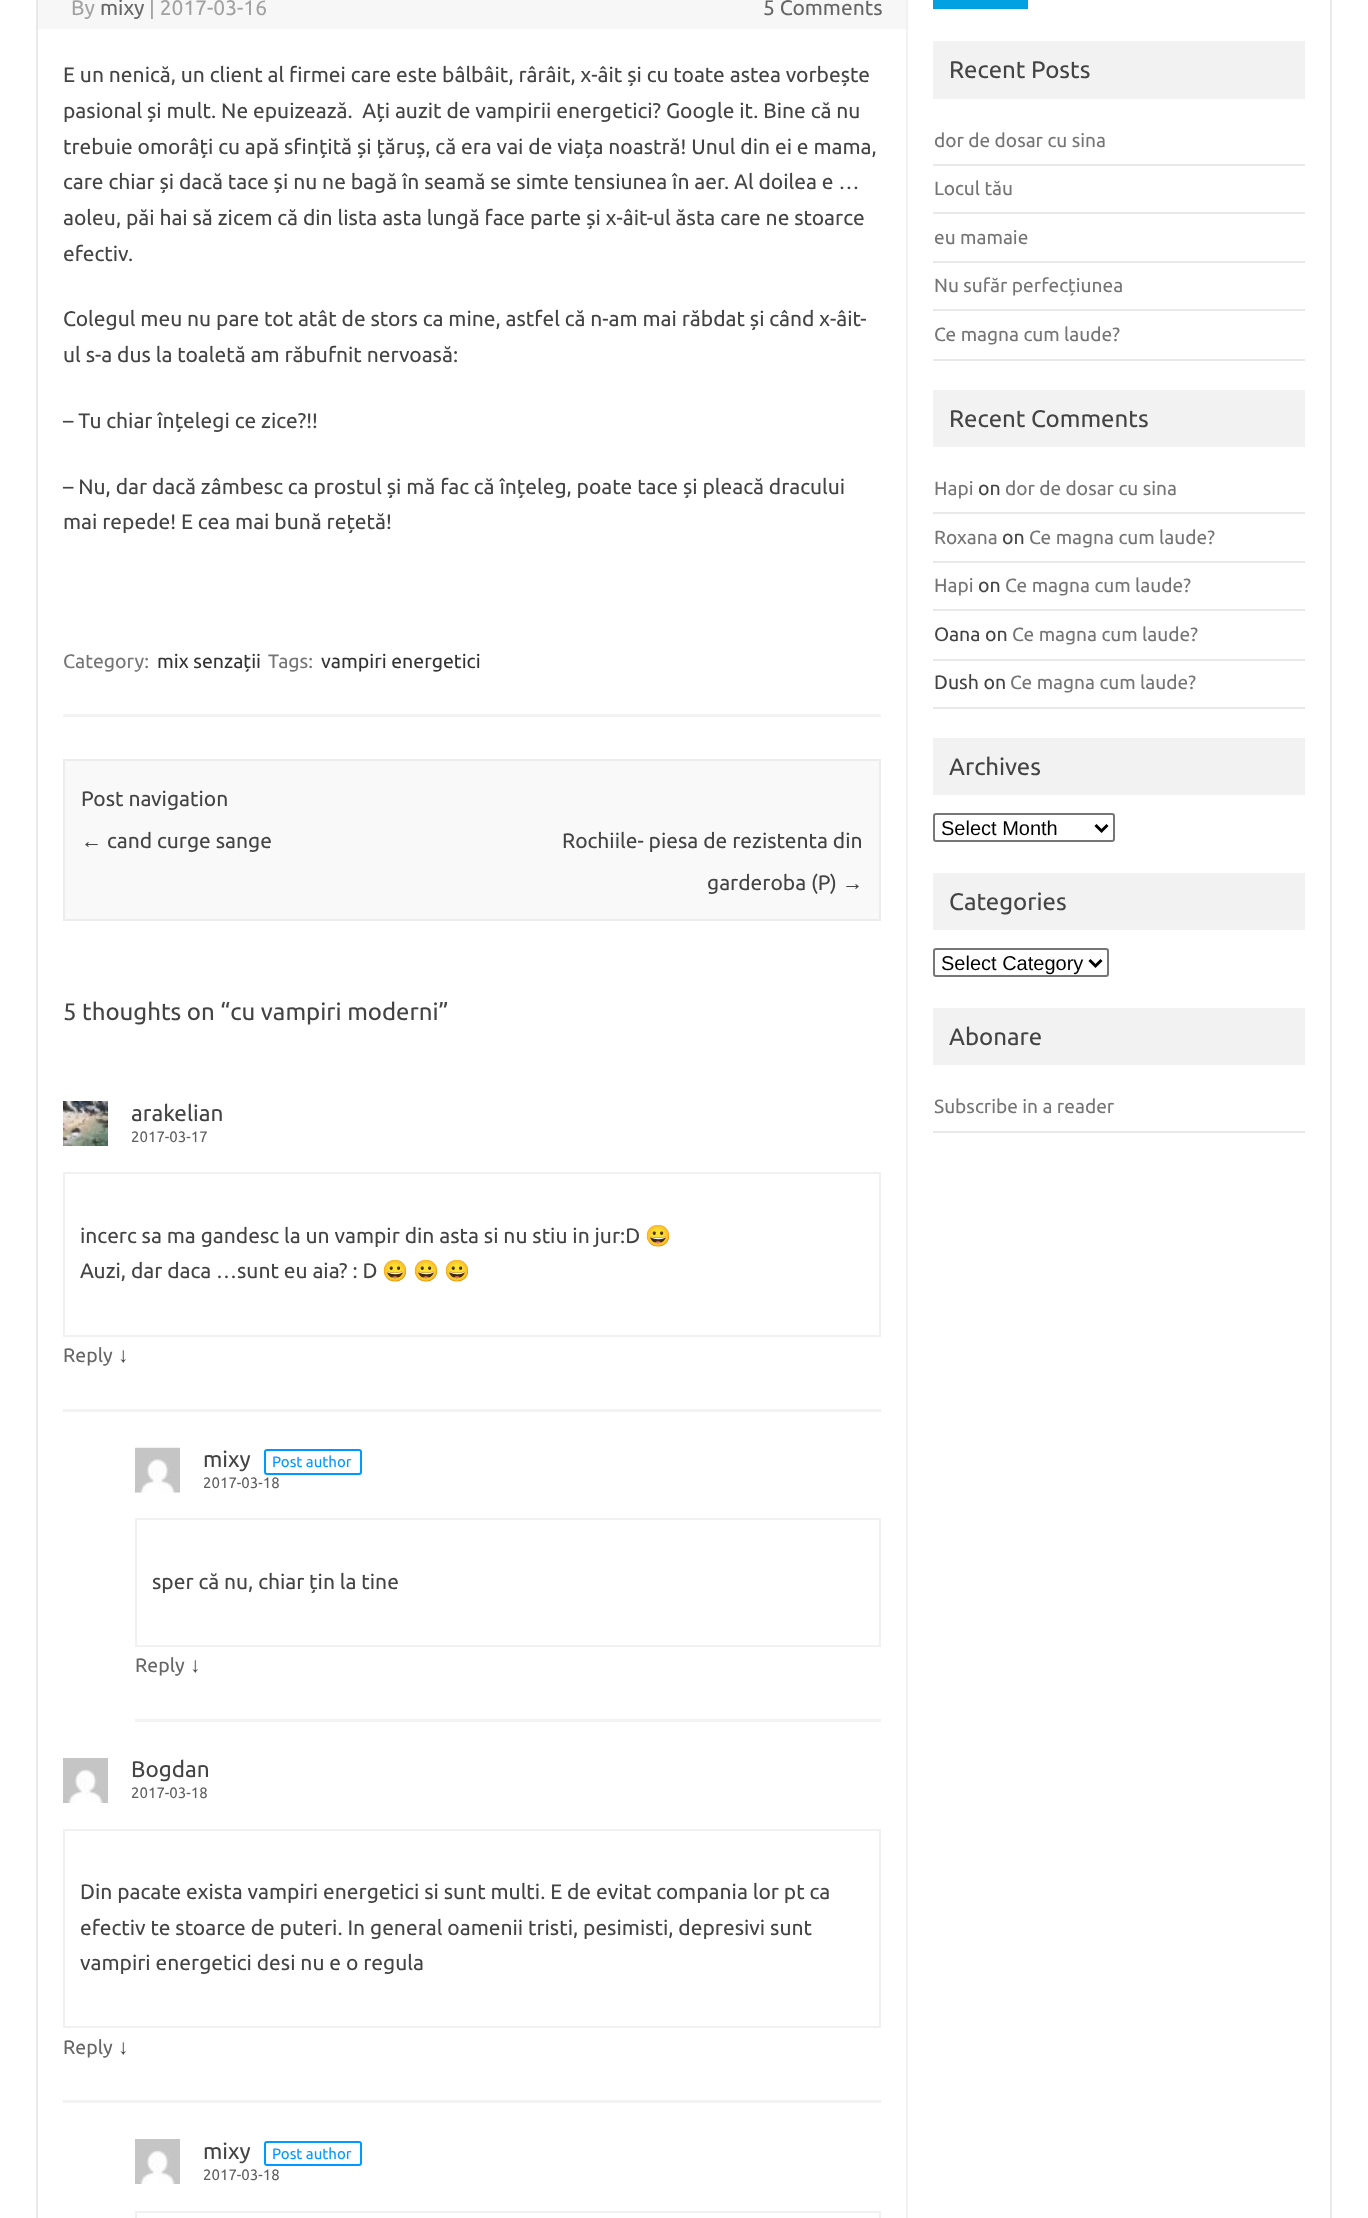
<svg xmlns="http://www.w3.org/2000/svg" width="1368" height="2218">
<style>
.a{font:21px Ubuntu;fill:#a2a2a2}
.b{font:21px Ubuntu;fill:#666}
.c{font:21px Ubuntu;fill:#444}
.d{font:19.5px Ubuntu;fill:#757575}
.e{font:19.5px Ubuntu;fill:#333}
.f{font:21px Liberation Sans;fill:#444}
.g{font:24px Ubuntu;fill:#444}
.h{font:22.5px Ubuntu;fill:#444}
.i{font:15px Ubuntu;fill:#5e5e5e}
.j{font:21px Noto Color Emoji;fill:#444}
.k{font:19.5px Ubuntu;fill:#666}
.l{font:15px Ubuntu;fill:#09f}
.m{font:19.1px Ubuntu;fill:#757575}
.n{font:19.5px Ubuntu;fill:#444}
.o{font:20px Liberation Sans;fill:#000}
</style>
<rect width="100%" height="100%" fill="#fff"/>
<path fill="none" stroke="#e9e9e9" stroke-width="2" d="M37 -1h1294v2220H37z"/>
<path fill="#f1f1f1" d="M906 0h2v2218H906z"/>
<path fill="#f3f3f3" d="M63 714h818v3H63z"/>
<path fill="#f7f7f7" d="M38 0h868v29H38z"/>
<path fill="#f9f9f9" stroke="#ededed" stroke-width="2" d="M64 760h816v160H64z"/>
<path fill="#f3f3f3" d="M63 1409h818v3H63z"/>
<image href="1.png" x="63" y="1101" width="45" height="45"/>
<path fill="none" stroke="#f1f1f1" stroke-width="2" d="M64 1173h816v163H64z"/>
<path fill="#f3f3f3" d="M135 1719h746v3H135z"/>
<image href="2.png" x="135" y="1447" width="45" height="46"/>
<rect fill="none" stroke="#09f" stroke-width="2" x="265" y="1450" width="96" height="24" rx="2"/>
<path fill="none" stroke="#f1f1f1" stroke-width="2" d="M136 1519h744v127H136z"/>
<path fill="#f3f3f3" d="M63 2100h818v3H63z"/>
<image href="3.png" x="63" y="1758" width="45" height="45"/>
<path fill="none" stroke="#f1f1f1" stroke-width="2" d="M64 1830h816v197H64z"/>
<image href="3.png" x="135" y="2139" width="45" height="45"/>
<rect fill="none" stroke="#09f" stroke-width="2" x="265" y="2142" width="96" height="23" rx="2"/>
<path fill="none" stroke="#f1f1f1" stroke-width="2" d="M136 2212h744v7H136z"/>
<path fill="#00a1e0" d="M933 0h95v9H933z"/>
<path fill="#f2f2f2" d="M933 41h372v58H933z"/>
<path fill="#e9e9e9" d="M933 164h372v2H933z"/>
<path fill="#e9e9e9" d="M933 212h372v2H933z"/>
<path fill="#e9e9e9" d="M933 261h372v2H933z"/>
<path fill="#e9e9e9" d="M933 309h372v2H933z"/>
<path fill="#e9e9e9" d="M933 359h372v2H933z"/>
<path fill="#f2f2f2" d="M933 390h372v57H933z"/>
<path fill="#e9e9e9" d="M933 512h372v2H933z"/>
<path fill="#e9e9e9" d="M933 561h372v2H933z"/>
<path fill="#e9e9e9" d="M933 609h372v2H933z"/>
<path fill="#e9e9e9" d="M933 659h372v2H933z"/>
<path fill="#e9e9e9" d="M933 707h372v2H933z"/>
<path fill="#f2f2f2" d="M933 738h372v57H933z"/>
<rect fill="none" stroke="#767676" stroke-width="2" x="934" y="814" width="180" height="27" rx="2"/>
<path fill="none" stroke="#000" stroke-width="3" d="M1095.5 825l6 6l6-6"/>
<path fill="#f2f2f2" d="M933 873h372v57H933z"/>
<rect fill="none" stroke="#767676" stroke-width="2" x="934" y="949" width="174" height="27" rx="2"/>
<path fill="none" stroke="#000" stroke-width="3" d="M1089.5 960l6 6l6-6"/>
<path fill="#f2f2f2" d="M933 1008h372v57H933z"/>
<path fill="#e9e9e9" d="M933 1131h372v2H933z"/>
<text class="a" x="71" y="15">By</text>
<text class="b" x="100" y="15">mixy</text>
<text class="a" x="149" y="15">| 2017-03-16</text>
<text class="b" x="763" y="15">5 Comments</text>
<text class="c" x="63" y="82">E un nenică, un client al firmei care este bâlbâit, rârâit, x-âit și cu toate astea vorbește</text>
<text class="c" xml:space="preserve" x="63" y="118">pasional și mult. Ne epuizează.  Ați auzit de vampirii energetici? Google it. Bine că nu</text>
<text class="c" x="63" y="154">trebuie omorâți cu apă sfințită și țăruș, că era vai de viața noastră! Unul din ei e mama,</text>
<text class="c" x="63" y="189">care chiar și dacă tace și nu ne bagă în seamă se simte tensiunea în aer. Al doilea e …</text>
<text class="c" x="63" y="225">aoleu, păi hai să zicem că din lista asta lungă face parte și x-âit-ul ăsta care ne stoarce</text>
<text class="c" x="63" y="261">efectiv.</text>
<text class="c" x="63" y="326">Colegul meu nu pare tot atât de stors ca mine, astfel că n-am mai răbdat și când x-âit-</text>
<text class="c" x="63" y="362">ul s-a dus la toaletă am răbufnit nervoasă:</text>
<text class="c" x="63" y="428">– Tu chiar înțelegi ce zice?!!</text>
<text class="c" x="63" y="494">– Nu, dar dacă zâmbesc ca prostul și mă fac că înțeleg, poate tace și pleacă dracului</text>
<text class="c" x="63" y="529">mai repede! E cea mai bună rețetă!</text>
<text class="d" x="63" y="668">Category:</text>
<text class="e" x="157" y="668">mix senzații</text>
<text class="d" x="268" y="668">Tags:</text>
<text class="e" x="321" y="668">vampiri energetici</text>
<text class="c" x="81" y="806">Post navigation</text>
<text class="f" x="81" y="848">←</text>
<text class="c" x="107" y="848">cand curge sange</text>
<text class="c" x="562" y="848">Rochiile- piesa de rezistenta din</text>
<text class="c" x="707" y="890">garderoba (P)</text>
<text class="f" x="842" y="890">→</text>
<text class="g" x="63" y="1020">5 thoughts on “cu vampiri moderni”</text>
<text class="h" x="131" y="1121">arakelian</text>
<text class="i" x="131" y="1142">2017-03-17</text>
<text class="c" x="80" y="1243">incerc sa ma gandesc la un vampir din asta si nu stiu in jur:D</text>
<text class="j" x="645" y="1243">😀</text>
<text class="c" x="80" y="1278">Auzi, dar daca …sunt eu aia? : D</text>
<text class="j" x="382" y="1278">😀</text>
<text class="j" x="413" y="1278">😀</text>
<text class="j" x="444" y="1278">😀</text>
<text class="k" x="63" y="1362">Reply</text>
<text class="f" x="118" y="1362">↓</text>
<text class="h" x="203" y="1467">mixy</text>
<text class="l" x="272" y="1467">Post author</text>
<text class="i" x="203" y="1488">2017-03-18</text>
<text class="c" x="152" y="1589">sper că nu, chiar țin la tine</text>
<text class="k" x="135" y="1672">Reply</text>
<text class="f" x="190" y="1672">↓</text>
<text class="h" x="131" y="1777">Bogdan</text>
<text class="i" x="131" y="1798">2017-03-18</text>
<text class="c" x="80" y="1899">Din pacate exista vampiri energetici si sunt multi. E de evitat compania lor pt ca</text>
<text class="c" x="80" y="1935">efectiv te stoarce de puteri. In general oamenii tristi, pesimisti, depresivi sunt</text>
<text class="c" x="80" y="1970">vampiri energetici desi nu e o regula</text>
<text class="k" x="63" y="2054">Reply</text>
<text class="f" x="118" y="2054">↓</text>
<text class="h" x="203" y="2159">mixy</text>
<text class="l" x="272" y="2159">Post author</text>
<text class="i" x="203" y="2180">2017-03-18</text>
<text class="g" x="949" y="78">Recent Posts</text>
<text class="m" x="934" y="147">dor de dosar cu sina</text>
<text class="m" x="934" y="195">Locul tău</text>
<text class="m" x="934" y="244">eu mamaie</text>
<text class="m" x="934" y="292">Nu sufăr perfecțiunea</text>
<text class="m" x="934" y="341">Ce magna cum laude?</text>
<text class="g" x="949" y="427">Recent Comments</text>
<text class="m" x="934" y="495">Hapi</text>
<text class="n" x="978" y="495">on</text>
<text class="m" x="1005" y="495">dor de dosar cu sina</text>
<text class="m" x="934" y="544">Roxana</text>
<text class="n" x="1002" y="544">on</text>
<text class="m" x="1029" y="544">Ce magna cum laude?</text>
<text class="m" x="934" y="592">Hapi</text>
<text class="n" x="978" y="592">on</text>
<text class="m" x="1005" y="592">Ce magna cum laude?</text>
<text class="n" x="934" y="641">Oana on</text>
<text class="m" x="1012" y="641">Ce magna cum laude?</text>
<text class="n" x="934" y="689">Dush on</text>
<text class="m" x="1010" y="689">Ce magna cum laude?</text>
<text class="g" x="949" y="775">Archives</text>
<text class="o" x="941" y="835">Select Month</text>
<text class="g" x="949" y="910">Categories</text>
<text class="o" x="941" y="970">Select Category</text>
<text class="g" x="949" y="1045">Abonare</text>
<text class="m" x="934" y="1113">Subscribe in a reader</text>
</svg>
